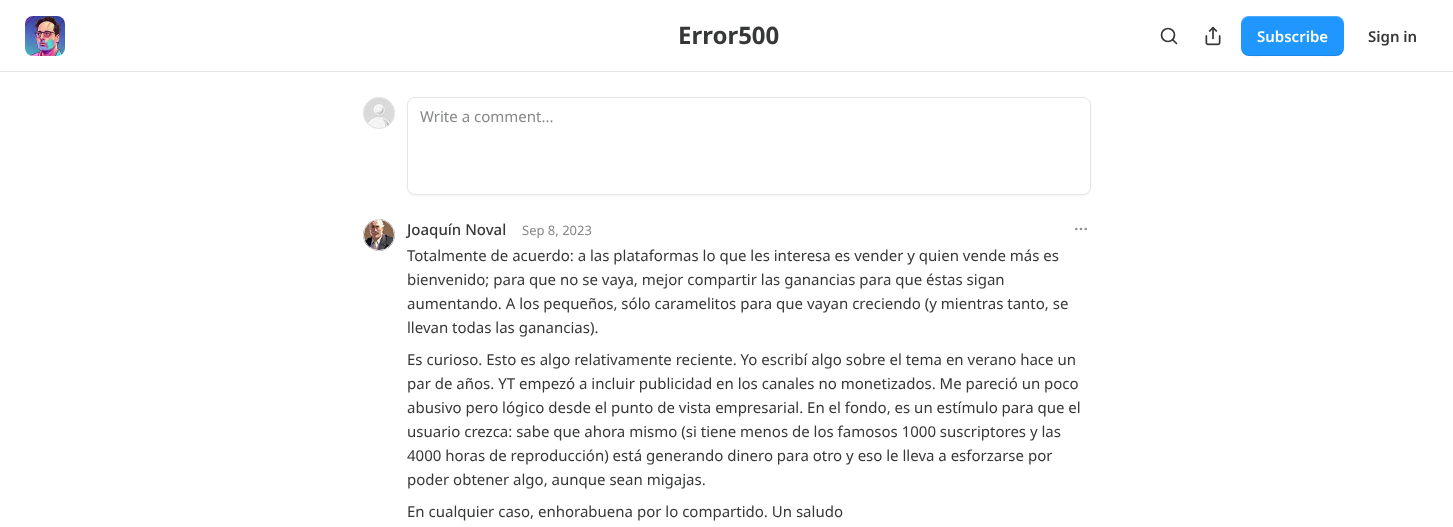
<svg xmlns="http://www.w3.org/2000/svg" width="1453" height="527">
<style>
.a{font:bold 24px Noto Sans;fill:#363737}
.b{font:600 15px Noto Sans;fill:#fff}
.c{font:600 15px Noto Sans;fill:#363737}
.d{font:15px Noto Sans;fill:#868787}
.e{font:500 15px Noto Sans;fill:#363737}
.f{font:13px Noto Sans;fill:#868787}
.g{font:15px Noto Sans;fill:#363737}
</style>
<rect width="100%" height="100%" fill="#fff"/>
<path fill="#e6e6e6" d="M0 71h1453v1H0z"/>
<image href="1.png" x="25" y="16" width="40" height="40"/>
<circle fill="none" stroke="#363737" stroke-width="1.7" cx="1168" cy="35" r="6.5"/>
<path fill="none" stroke="#363737" stroke-width="1.7" stroke-linecap="round" stroke-linejoin="round" d="M1176.5 43.5l-3.5-3.5"/>
<image href="2.png" x="1205" y="26" width="16" height="20"/>
<rect fill="#2096ff" x="1241" y="16" width="103" height="40" rx="8"/>
<path fill="#0000001a" d="M1241 47c0 12 14 9 23 9h58c8 0 22 3 22-9c0 4-4 8-8 8h-87c-4 0-8-4-8-8z"/>
<path fill="#ffffff33" d="M1249 17h87c4 0 8 4 8 8c0-12-14-9-22-9h-58c-9 0-23-3-23 9c0-4 4-8 8-8z"/>
<circle fill="none" stroke="#e6e6e6" cx="379" cy="113" r="15.5"/>
<image href="3.png" x="363" y="97" width="32" height="32"/>
<circle fill="none" stroke="#e6e6e6" cx="379" cy="113" r="15.5"/>
<rect fill="#0000000d" filter="blur(1px)" x="407" y="98" width="684" height="98" rx="8"/>
<rect fill="#fff" stroke="#e6e6e6" x="407.5" y="97.5" width="683" height="97" rx="7.5"/>
<circle fill="none" stroke="#e6e6e6" cx="379" cy="235" r="15.5"/>
<image href="4.png" x="363" y="219" width="32" height="32"/>
<circle fill="none" stroke="#e6e6e6" cx="379" cy="235" r="15.5"/>
<circle fill="none" stroke="#929292" stroke-width="1.3" cx="1081" cy="229" r="0.7"/>
<circle fill="none" stroke="#929292" stroke-width="1.3" cx="1085.7" cy="229" r="0.7"/>
<circle fill="none" stroke="#929292" stroke-width="1.3" cx="1076.3" cy="229" r="0.7"/>
<text class="a" x="678" y="44">Error500</text>
<text class="b" x="1257" y="42">Subscribe</text>
<text class="c" x="1368" y="42">Sign in</text>
<text class="d" x="420" y="122">Write a comment...</text>
<text class="e" x="407" y="235">Joaquín Noval</text>
<text class="f" x="522" y="235">Sep 8, 2023</text>
<text class="g" x="407" y="261">Totalmente de acuerdo: a las plataformas lo que les interesa es vender y quien vende más es</text>
<text class="g" x="407" y="285">bienvenido; para que no se vaya, mejor compartir las ganancias para que éstas sigan</text>
<text class="g" x="407" y="309">aumentando. A los pequeños, sólo caramelitos para que vayan creciendo (y mientras tanto, se</text>
<text class="g" x="407" y="333">llevan todas las ganancias).</text>
<text class="g" x="407" y="365">Es curioso. Esto es algo relativamente reciente. Yo escribí algo sobre el tema en verano hace un</text>
<text class="g" x="407" y="389">par de años. YT empezó a incluir publicidad en los canales no monetizados. Me pareció un poco</text>
<text class="g" x="407" y="413">abusivo pero lógico desde el punto de vista empresarial. En el fondo, es un estímulo para que el</text>
<text class="g" x="407" y="437">usuario crezca: sabe que ahora mismo (si tiene menos de los famosos 1000 suscriptores y las</text>
<text class="g" x="407" y="461">4000 horas de reproducción) está generando dinero para otro y eso le lleva a esforzarse por</text>
<text class="g" x="407" y="485">poder obtener algo, aunque sean migajas.</text>
<text class="g" x="407" y="517">En cualquier caso, enhorabuena por lo compartido. Un saludo</text>
</svg>
